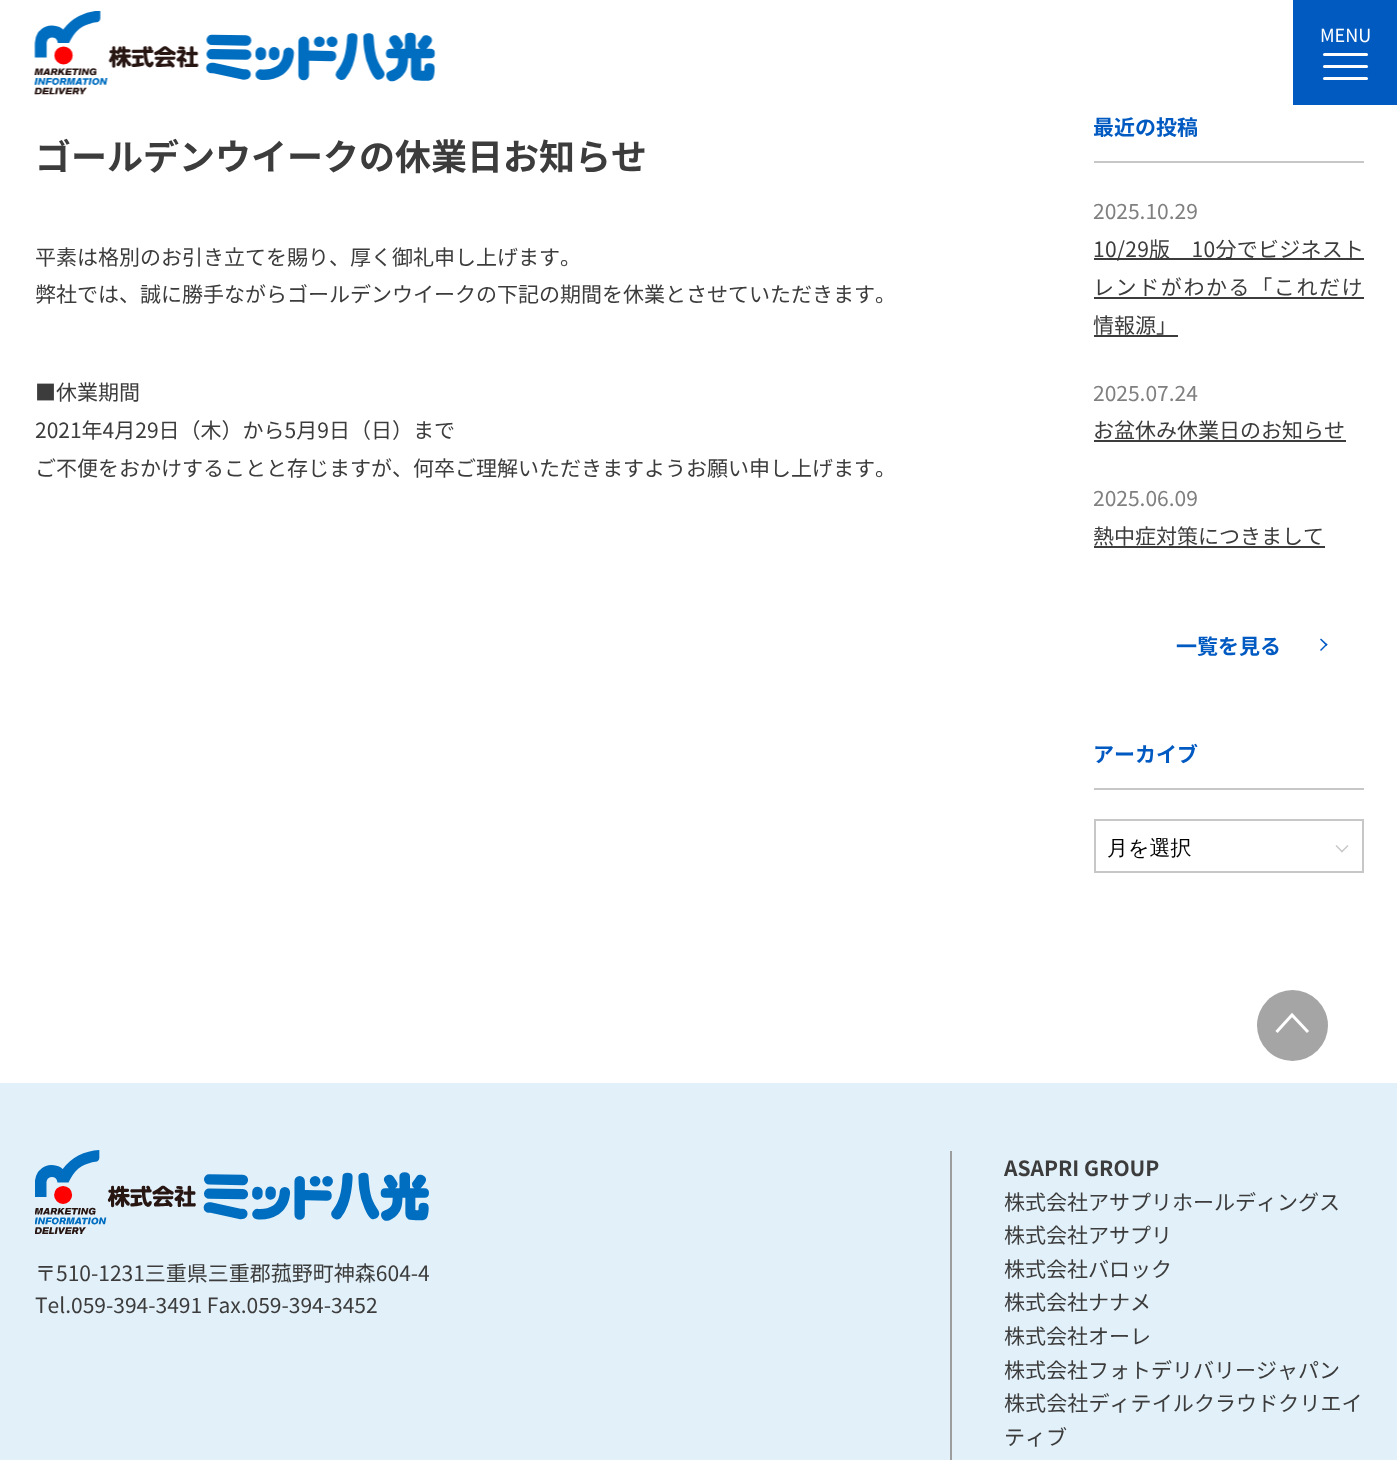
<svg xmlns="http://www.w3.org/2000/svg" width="1397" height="1460">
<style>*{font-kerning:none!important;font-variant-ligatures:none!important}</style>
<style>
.a{font:18px Noto Sans JP;fill:#fff}
.b{font:bold 36px Noto Sans JP;fill:#3c3c3c}
.c{font:21px Noto Sans JP;fill:#3c3c3c}
.d{font:bold 21px Noto Sans JP;fill:#005ac1}
.e{font:21px Noto Sans JP;fill:#808080}
.f{font:21px Noto Sans JP;letter-spacing:0.25px;fill:#3c3c3c}
.g{font:21px Noto Sans JP;letter-spacing:1.6px;fill:#3c3c3c}
.h{font:500 21px WenQuanYi Zen Hei;fill:#000}
.i{font:bold 21px Noto Sans JP;fill:#3c3c3c}
.j{font:21px Noto Sans JP;letter-spacing:0.1px;fill:#3c3c3c}
</style>
<rect width="100%" height="100%" fill="#fff"/>
<image href="1.png" x="34" y="11" width="402" height="84"/>
<path fill="#005abf" d="M1293 0h104v105H1293z"/>
<rect fill="#fff" x="1323" y="53" width="45" height="3" rx="1.5"/>
<rect fill="#fff" x="1323" y="65" width="45" height="3" rx="1.5"/>
<rect fill="#fff" x="1323" y="77" width="45" height="3" rx="1.5"/>
<path fill="#c7c7c7" d="M1094 161h270v2H1094z"/>
<path fill="#3c3c3c" d="M1094 258h270v2H1094z"/>
<path fill="#3c3c3c" d="M1094 297h270v2H1094z"/>
<path fill="#3c3c3c" d="M1094 335h84v2H1094z"/>
<path fill="#3c3c3c" d="M1094 440h252v2H1094z"/>
<path fill="#3c3c3c" d="M1094 546h231v2H1094z"/>
<path fill="#005ac4" d="M1321 638.5l6.5 6l-1 1.5l-6.5-6.5z"/>
<path fill="#005ac4" d="M1326.5 643.5l1 1l-6.5 6.5l-1-1z"/>
<path fill="#c7c7c7" d="M1094 788h270v2H1094z"/>
<path fill="none" stroke="#c7c7c7" stroke-width="2" d="M1095 820h268v52H1095z"/>
<path fill="#c7c7c7" d="M1348.5 846l-6.5 6.5l-1-1l6.5-6.5z"/>
<path fill="#c7c7c7" d="M1343 851.5l-1 1l-6.5-6.5l1-1z"/>
<circle fill="#a5a5a5" cx="1292.5" cy="1025.5" r="35.5"/>
<path fill="none" stroke="#fff" stroke-width="3" d="M1276.5 1032l15.5-17l16 17"/>
<path fill="#e2f0f9" d="M0 1083h1397v377H0z"/>
<image href="2.png" x="35" y="1150" width="394" height="84"/>
<path fill="#9d9d9d" d="M950 1151h2v309H950z"/>
<text class="a" x="1320" y="42">MENU</text>
<text class="b" x="35" y="170">ゴールデンウイークの休業日お知らせ</text>
<text class="c" x="35" y="265">平素は格別のお引き立てを賜り、厚く御礼申し上げます。</text>
<text class="c" x="35" y="302">弊社では、誠に勝手ながらゴールデンウイークの下記の期間を休業とさせていただきます。</text>
<text class="c" x="35" y="400">■休業期間</text>
<text class="c" x="35" y="438">2021年4月29日（木）から5月9日（日）まで</text>
<text class="c" x="35" y="476">ご不便をおかけすることと存じますが、何卒ご理解いただきますようお願い申し上げます。</text>
<text class="d" x="1093" y="135">最近の投稿</text>
<text class="e" x="1093" y="219">2025.10.29</text>
<text class="f" x="1093" y="257">10/29版　10分でビジネスト</text>
<text class="g" x="1093" y="295">レンドがわかる「これだけ</text>
<text class="c" x="1093" y="333">情報源」</text>
<text class="e" x="1093" y="401">2025.07.24</text>
<text class="c" x="1093" y="438">お盆休み休業日のお知らせ</text>
<text class="e" x="1093" y="506">2025.06.09</text>
<text class="c" x="1093" y="544">熱中症対策につきまして</text>
<text class="d" x="1176" y="654">一覧を見る</text>
<text class="d" x="1093" y="762">アーカイブ</text>
<text class="h" x="1107" y="855">月を選択</text>
<text class="c" x="35" y="1281">〒510-1231三重県三重郡菰野町神森604-4</text>
<text class="c" x="35" y="1313">Tel.059-394-3491 Fax.059-394-3452</text>
<text class="i" x="1004" y="1176">ASAPRI GROUP</text>
<text class="c" x="1004" y="1210">株式会社アサプリホールディングス</text>
<text class="c" x="1004" y="1243">株式会社アサプリ</text>
<text class="c" x="1004" y="1277">株式会社バロック</text>
<text class="c" x="1004" y="1310">株式会社ナナメ</text>
<text class="c" x="1004" y="1344">株式会社オーレ</text>
<text class="c" x="1004" y="1378">株式会社フォトデリバリージャパン</text>
<text class="j" x="1004" y="1411">株式会社ディテイルクラウドクリエイ</text>
<text class="c" x="1004" y="1445">ティブ</text>
</svg>
